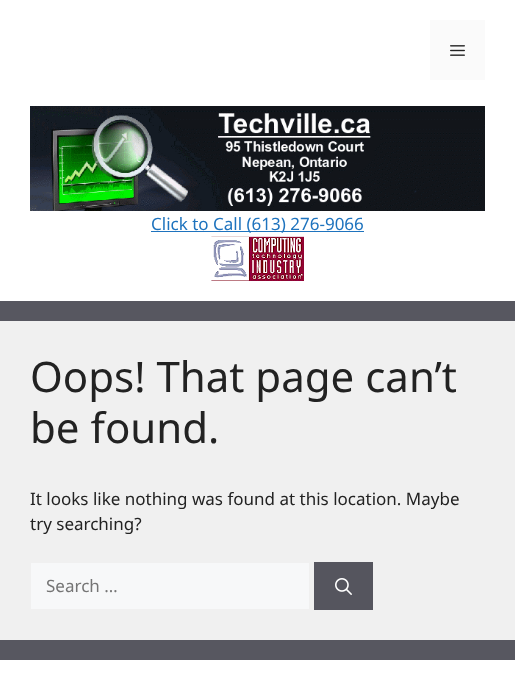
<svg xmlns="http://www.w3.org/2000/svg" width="515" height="676">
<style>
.a{font:17px Noto Sans;fill:#1e73be}
.b{font:42px Noto Sans;fill:#222}
.c{font:17px Noto Sans;fill:#222}
.d{font:17px Noto Sans;fill:#757575}
</style>
<rect width="100%" height="100%" fill="#575760"/>
<path fill="#fff" d="M0 0h515v301H0z"/>
<path fill="#fafafa" d="M430 20h55v60H430z"/>
<image href="1.png" x="450" y="45" width="15" height="11"/>
<image href="2.png" x="30" y="106" width="455" height="105"/>
<path fill="#1e73be" d="M151 231h213v1H151z"/>
<image href="3.png" x="211" y="236" width="93" height="45"/>
<path fill="#f0f0f0" d="M0 321h515v319H0z"/>
<path fill="#f7f8f9" d="M31 563h278v46H31z"/>
<path fill="#55555e" d="M314 562h59v48H314z"/>
<image href="4.png" x="335" y="578" width="17" height="17"/>
<path fill="#fff" d="M0 660h515v16H0z"/>
<text class="a" x="151" y="230">Click to Call (613) 276-9066</text>
<text class="b" x="30" y="392">Oops! That page can’t</text>
<text class="b" x="30" y="443">be found.</text>
<text class="c" x="30" y="505">It looks like nothing was found at this location. Maybe</text>
<text class="c" x="30" y="530">try searching?</text>
<text class="d" x="46" y="592">Search …</text>
</svg>
